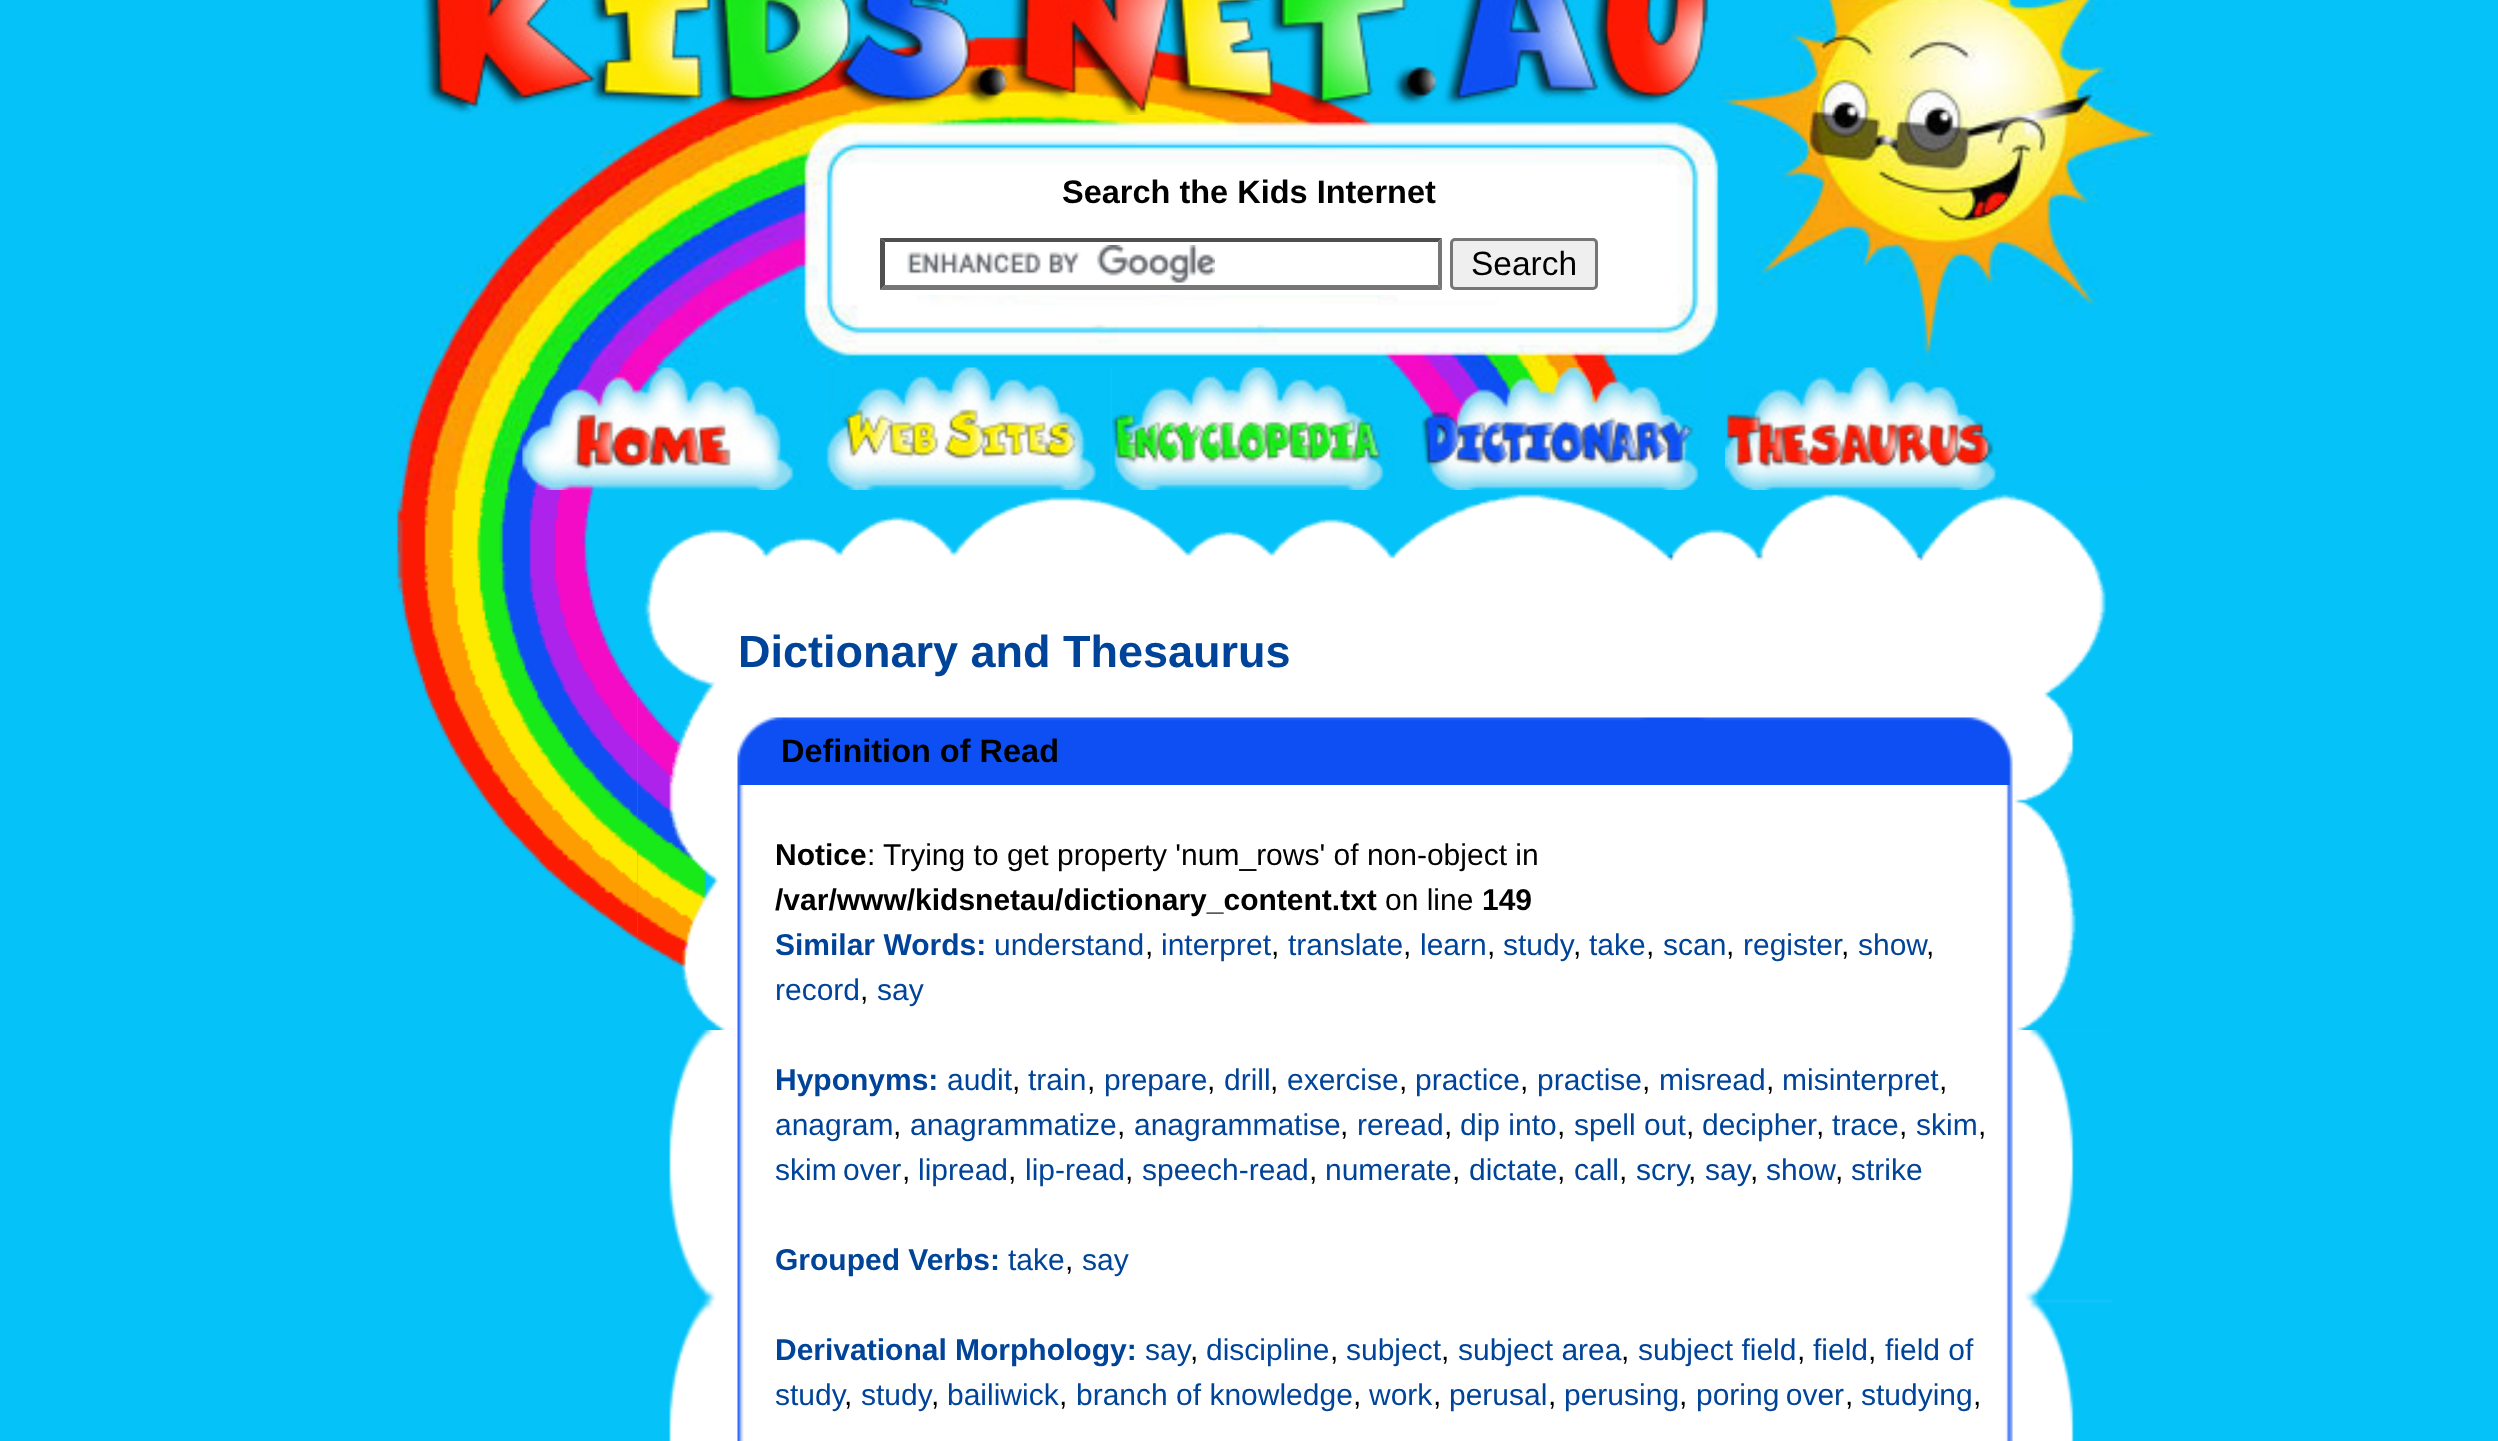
<svg xmlns="http://www.w3.org/2000/svg" width="2498" height="1441">
<style>
.a{font:bold 32.5px Liberation Sans;fill:#000}
.b{font:33.5px Liberation Sans;fill:#000}
.c{font:bold 45px Liberation Sans;fill:#049}
.d{font:bold 30px Liberation Sans;fill:#000}
.e{font:30px Liberation Sans;fill:#000}
.f{font:bold 30px Liberation Sans;fill:#049}
.g{font:30px Liberation Sans;fill:#049}
</style>
<rect width="100%" height="100%" fill="#05c2f9"/>
<image href="1.png" x="397" y="0" width="1761" height="490"/>
<image href="2.png" x="421" y="0" width="1292" height="115"/>
<path fill="#fff" d="M897 204h522v91H897z"/>
<image href="3.png" x="907" y="245" width="308" height="38"/>
<path fill="#4f4f4f" d="M880 238h562l-4 4h-553z"/>
<path fill="#767676" d="M1442 238v52l-4-5v-43z"/>
<path fill="#767676" d="M1442 290h-562l5-5h553z"/>
<path fill="#4f4f4f" d="M880 290v-52l5 4v43z"/>
<rect fill="#efefef" stroke="#767676" stroke-width="3" x="1451.5" y="239.5" width="145" height="49" rx="3.5"/>
<image href="4.png" x="522" y="367" width="280" height="123"/>
<image href="5.png" x="825" y="367" width="288" height="123"/>
<image href="6.png" x="1112" y="367" width="308" height="123"/>
<image href="7.png" x="1420" y="367" width="281" height="123"/>
<image href="8.png" x="1725" y="367" width="273" height="123"/>
<image href="9.png" x="396" y="490" width="242" height="540"/>
<image href="10.png" x="637" y="490" width="1476" height="951"/>
<image href="11.png" x="637" y="490" width="1476" height="540"/>
<image href="12.png" x="737" y="717" width="1276" height="68"/>
<image href="13.png" x="737" y="785" width="1276" height="656"/>
<text class="a" x="1062" y="203">Search the Kids Internet</text>
<text class="b" x="1471" y="275">Search</text>
<text class="c" x="738" y="667">Dictionary and Thesaurus</text>
<text class="a" x="781" y="762">Definition of Read</text>
<text class="d" x="775" y="865">Notice</text>
<text class="e" x="867" y="865">:</text>
<text class="e" x="883" y="865">Trying to get property 'num_rows' of non-object in</text>
<text class="d" x="775" y="910">/var/www/kidsnetau/dictionary_content.txt</text>
<text class="e" x="1385" y="910">on line</text>
<text class="d" x="1482" y="910">149</text>
<text class="f" x="775" y="955">Similar Words:</text>
<text class="g" x="994" y="955">understand</text>
<text class="e" x="1145" y="955">,</text>
<text class="g" x="1161" y="955">interpret</text>
<text class="e" x="1271" y="955">,</text>
<text class="g" x="1288" y="955">translate</text>
<text class="e" x="1403" y="955">,</text>
<text class="g" x="1420" y="955">learn</text>
<text class="e" x="1487" y="955">,</text>
<text class="g" x="1503" y="955">study</text>
<text class="e" x="1573" y="955">,</text>
<text class="g" x="1589" y="955">take</text>
<text class="e" x="1646" y="955">,</text>
<text class="g" x="1663" y="955">scan</text>
<text class="e" x="1726" y="955">,</text>
<text class="g" x="1743" y="955">register</text>
<text class="e" x="1841" y="955">,</text>
<text class="g" x="1858" y="955">show</text>
<text class="e" x="1926" y="955">,</text>
<text class="g" x="775" y="1000">record</text>
<text class="e" x="860" y="1000">,</text>
<text class="g" x="877" y="1000">say</text>
<text class="f" x="775" y="1090">Hyponyms:</text>
<text class="g" x="947" y="1090">audit</text>
<text class="e" x="1012" y="1090">,</text>
<text class="g" x="1028" y="1090">train</text>
<text class="e" x="1087" y="1090">,</text>
<text class="g" x="1104" y="1090">prepare</text>
<text class="e" x="1207" y="1090">,</text>
<text class="g" x="1224" y="1090">drill</text>
<text class="e" x="1270" y="1090">,</text>
<text class="g" x="1287" y="1090">exercise</text>
<text class="e" x="1399" y="1090">,</text>
<text class="g" x="1415" y="1090">practice</text>
<text class="e" x="1520" y="1090">,</text>
<text class="g" x="1537" y="1090">practise</text>
<text class="e" x="1642" y="1090">,</text>
<text class="g" x="1659" y="1090">misread</text>
<text class="e" x="1766" y="1090">,</text>
<text class="g" x="1782" y="1090">misinterpret</text>
<text class="e" x="1939" y="1090">,</text>
<text class="g" x="775" y="1135">anagram</text>
<text class="e" x="893" y="1135">,</text>
<text class="g" x="910" y="1135">anagrammatize</text>
<text class="e" x="1117" y="1135">,</text>
<text class="g" x="1134" y="1135">anagrammatise</text>
<text class="e" x="1340" y="1135">,</text>
<text class="g" x="1357" y="1135">reread</text>
<text class="e" x="1444" y="1135">,</text>
<text class="g" x="1460" y="1135">dip into</text>
<text class="e" x="1557" y="1135">,</text>
<text class="g" x="1574" y="1135">spell out</text>
<text class="e" x="1686" y="1135">,</text>
<text class="g" x="1702" y="1135">decipher</text>
<text class="e" x="1816" y="1135">,</text>
<text class="g" x="1832" y="1135">trace</text>
<text class="e" x="1899" y="1135">,</text>
<text class="g" x="1916" y="1135">skim</text>
<text class="e" x="1978" y="1135">,</text>
<text class="g" x="775" y="1180" word-spacing="-2">skim over</text>
<text class="e" x="902" y="1180">,</text>
<text class="g" x="918" y="1180">lipread</text>
<text class="e" x="1008" y="1180">,</text>
<text class="g" x="1025" y="1180">lip-read</text>
<text class="e" x="1125" y="1180">,</text>
<text class="g" x="1142" y="1180">speech-read</text>
<text class="e" x="1309" y="1180">,</text>
<text class="g" x="1325" y="1180">numerate</text>
<text class="e" x="1452" y="1180">,</text>
<text class="g" x="1469" y="1180">dictate</text>
<text class="e" x="1557" y="1180">,</text>
<text class="g" x="1574" y="1180">call</text>
<text class="e" x="1619" y="1180">,</text>
<text class="g" x="1636" y="1180">scry</text>
<text class="e" x="1688" y="1180">,</text>
<text class="g" x="1705" y="1180">say</text>
<text class="e" x="1750" y="1180">,</text>
<text class="g" x="1766" y="1180">show</text>
<text class="e" x="1835" y="1180">,</text>
<text class="g" x="1851" y="1180">strike</text>
<text class="f" x="775" y="1270">Grouped Verbs:</text>
<text class="g" x="1008" y="1270">take</text>
<text class="e" x="1065" y="1270">,</text>
<text class="g" x="1082" y="1270">say</text>
<text class="f" x="775" y="1360">Derivational Morphology:</text>
<text class="g" x="1145" y="1360">say</text>
<text class="e" x="1190" y="1360">,</text>
<text class="g" x="1206" y="1360">discipline</text>
<text class="e" x="1330" y="1360">,</text>
<text class="g" x="1346" y="1360">subject</text>
<text class="e" x="1441" y="1360">,</text>
<text class="g" x="1458" y="1360">subject area</text>
<text class="e" x="1621" y="1360">,</text>
<text class="g" x="1638" y="1360">subject field</text>
<text class="e" x="1797" y="1360">,</text>
<text class="g" x="1813" y="1360">field</text>
<text class="e" x="1868" y="1360">,</text>
<text class="g" x="1885" y="1360">field of</text>
<text class="g" x="775" y="1405">study</text>
<text class="e" x="844" y="1405">,</text>
<text class="g" x="861" y="1405">study</text>
<text class="e" x="931" y="1405">,</text>
<text class="g" x="947" y="1405">bailiwick</text>
<text class="e" x="1059" y="1405">,</text>
<text class="g" x="1076" y="1405">branch of knowledge</text>
<text class="e" x="1353" y="1405">,</text>
<text class="g" x="1369" y="1405">work</text>
<text class="e" x="1433" y="1405">,</text>
<text class="g" x="1449" y="1405">perusal</text>
<text class="e" x="1548" y="1405">,</text>
<text class="g" x="1564" y="1405">perusing</text>
<text class="e" x="1679" y="1405">,</text>
<text class="g" x="1696" y="1405" word-spacing="-2">poring over</text>
<text class="e" x="1845" y="1405">,</text>
<text class="g" x="1861" y="1405">studying</text>
<text class="e" x="1973" y="1405">,</text>
</svg>
